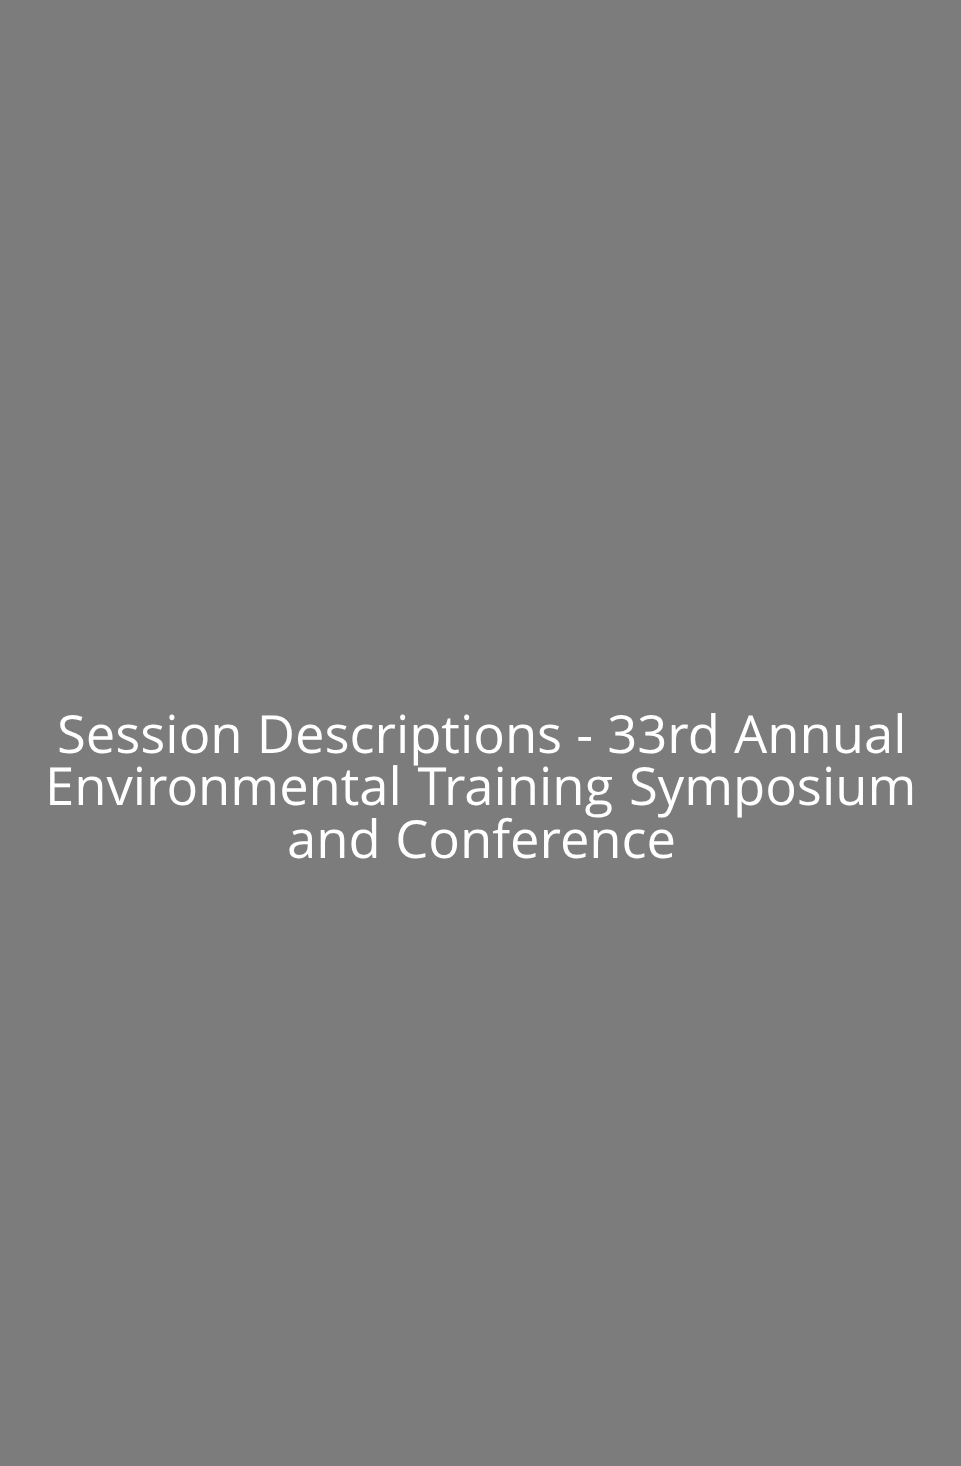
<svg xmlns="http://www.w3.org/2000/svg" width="961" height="1466">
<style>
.a{font:52.5px Open Sans;fill:#fff}
</style>
<rect width="100%" height="100%" fill="#7c7c7c"/>
<text class="a" x="57" y="753" word-spacing="0.5">Session Descriptions - 33rd Annual</text>
<text class="a" x="45" y="805" word-spacing="2">Environmental Training Symposium</text>
<text class="a" x="287" y="858" word-spacing="1">and Conference</text>
</svg>
